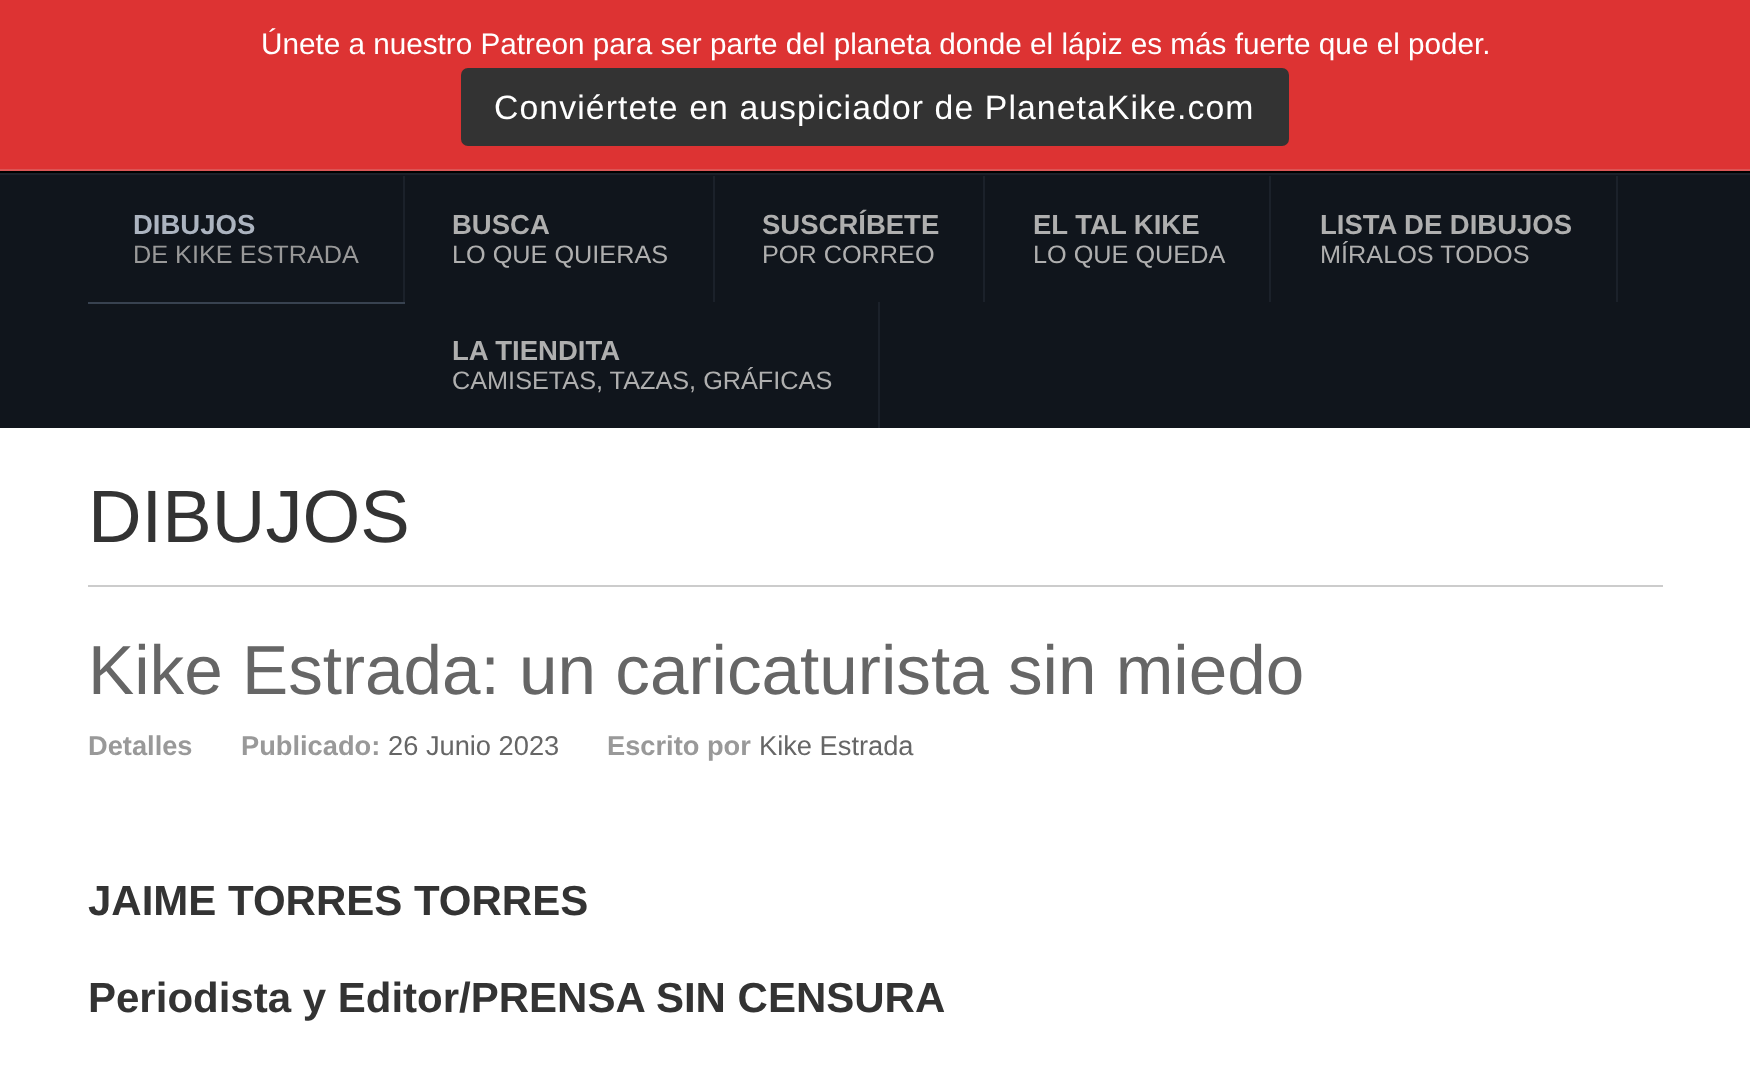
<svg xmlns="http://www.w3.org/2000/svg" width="1750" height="1069">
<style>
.a{font:29.7px Liberation Sans;fill:#fff}
.b{font:33.75px Liberation Sans;letter-spacing:1.1px;fill:#fff}
.c{font:bold 27.5px Liberation Sans;fill:#acb4c0}
.d{font:25.25px Liberation Sans;fill:#999}
.e{font:bold 27.5px Liberation Sans;fill:#afafaf}
.f{font:25.25px Liberation Sans;fill:#afafaf}
.g{font:74.25px Liberation Sans;fill:#333}
.h{font:69.25px Liberation Sans;fill:#666}
.i{font:bold 27.25px Liberation Sans;fill:#999}
.j{font:27.25px Liberation Sans;fill:#666}
.k{font:bold 42px Liberation Sans;fill:#333}
</style>
<rect width="100%" height="100%" fill="#fff"/>
<path fill="#d33" d="M0 0h1750v169H0z"/>
<path fill="#db5555" d="M0 169h1750v2H0z"/>
<rect fill="#333" x="461" y="68" width="828" height="78" rx="7"/>
<path fill="#000" d="M0 171h1750v2H0z"/>
<path fill="#10151c" d="M0 175h1750v253H0z"/>
<path fill="#1b212a" d="M0 173h1750v2H0z"/>
<path fill="#384250" d="M88 302h317v2H88z"/>
<path fill="#1b212a" d="M403 176h2v126H403z"/>
<path fill="#1b212a" d="M713 176h2v126H713z"/>
<path fill="#1b212a" d="M983 176h2v126H983z"/>
<path fill="#1b212a" d="M1269 176h2v126H1269z"/>
<path fill="#1b212a" d="M1616 176h2v126H1616z"/>
<path fill="#1b212a" d="M878 302h2v126H878z"/>
<path fill="#ccc" d="M88 585h1575v2H88z"/>
<text class="a" x="261" y="54">Únete a nuestro Patreon para ser parte del planeta donde el lápiz es más fuerte que el poder.</text>
<text class="b" x="494" y="119">Conviértete en auspiciador de PlanetaKike.com</text>
<text class="c" x="133" y="234">DIBUJOS</text>
<text class="d" x="133" y="263">DE KIKE ESTRADA</text>
<text class="e" x="452" y="234">BUSCA</text>
<text class="f" x="452" y="263">LO QUE QUIERAS</text>
<text class="e" x="762" y="234">SUSCRÍBETE</text>
<text class="f" x="762" y="263">POR CORREO</text>
<text class="e" x="1033" y="234">EL TAL KIKE</text>
<text class="f" x="1033" y="263">LO QUE QUEDA</text>
<text class="e" x="1320" y="234">LISTA DE DIBUJOS</text>
<text class="f" x="1320" y="263">MÍRALOS TODOS</text>
<text class="e" x="452" y="360">LA TIENDITA</text>
<text class="f" x="452" y="389">CAMISETAS, TAZAS, GRÁFICAS</text>
<text class="g" x="88" y="542">DIBUJOS</text>
<text class="h" x="88" y="694">Kike Estrada: un caricaturista sin miedo</text>
<text class="i" x="88" y="755">Detalles</text>
<text class="i" x="241" y="755">Publicado:</text>
<text class="j" x="388" y="755">26 Junio 2023</text>
<text class="i" x="607" y="755">Escrito por</text>
<text class="j" x="759" y="755">Kike Estrada</text>
<text class="k" x="88" y="915">JAIME TORRES TORRES</text>
<text class="k" x="88" y="1012">Periodista y Editor/PRENSA SIN CENSURA</text>
</svg>
